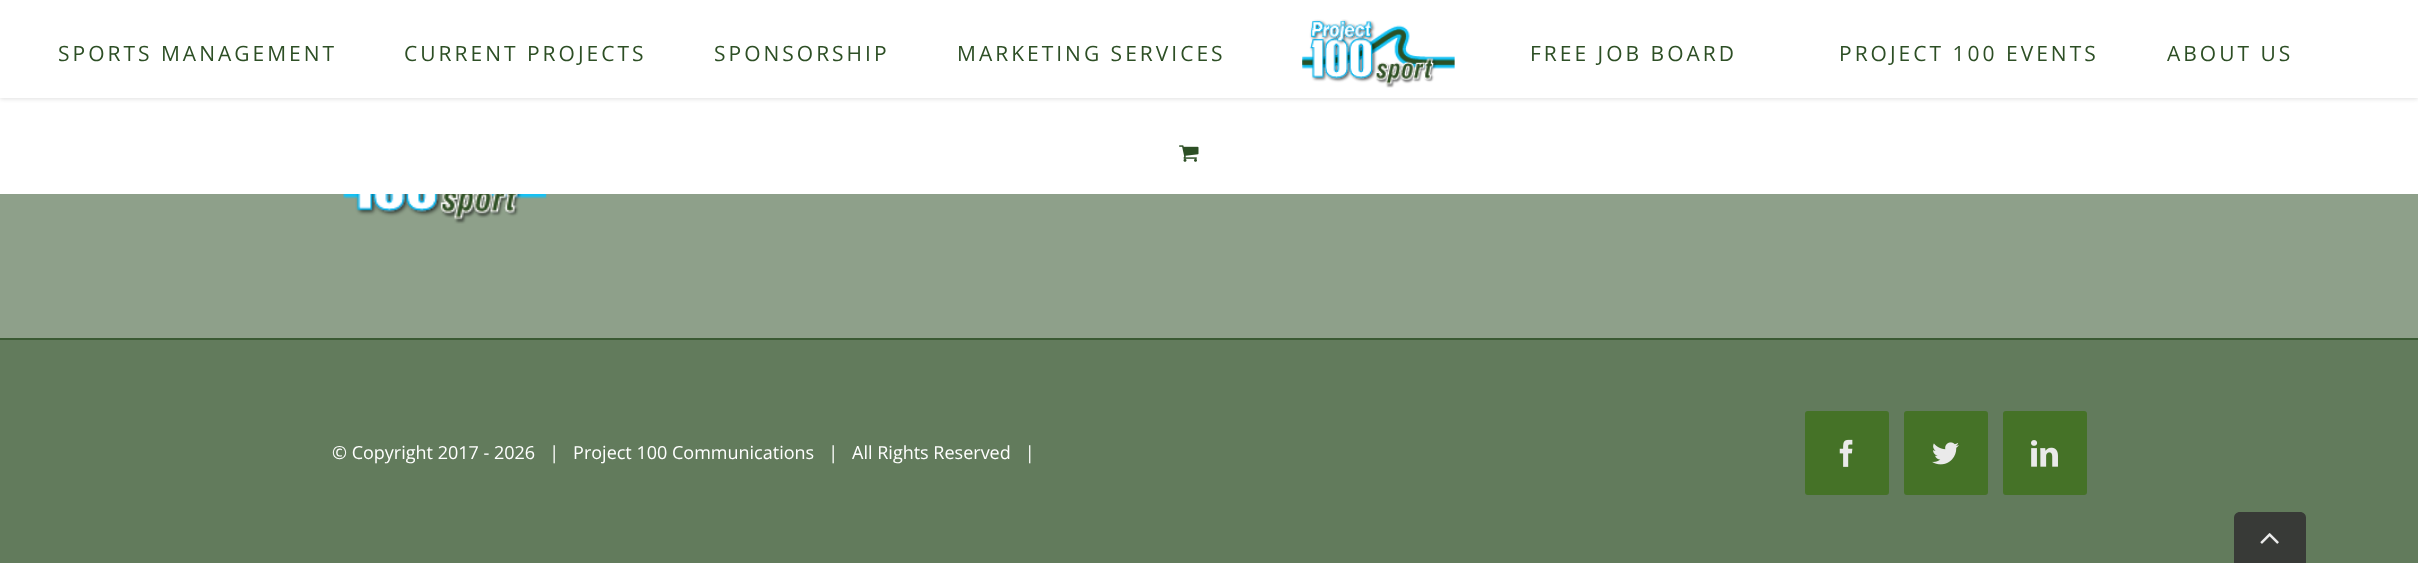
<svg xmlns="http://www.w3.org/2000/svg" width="2418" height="563">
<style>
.a{font:21px Open Sans;letter-spacing:3px;fill:#2d4f25}
.b{font:18px Open Sans;fill:#fff}
</style>
<rect width="100%" height="100%" fill="#8ea08a"/>
<path fill="#fff" d="M0 98h2418v96H0z"/>
<path fill="#0000001f" filter="blur(2px)" d="M0 2h2418v97H0z"/>
<path fill="#fff" d="M0 0h2418v98H0z"/>
<image href="1.png" x="1302" y="19" width="153" height="69"/>
<image href="2.png" x="1179" y="145" width="20" height="17"/>
<image href="3.png" x="343" y="194" width="204" height="30"/>
<path fill="#627b5c" d="M0 340h2418v223H0z"/>
<path fill="#3a5a33" d="M0 338h2418v2H0z"/>
<rect fill="#457227" stroke="#457227" stroke-width="2" x="1806" y="412" width="82" height="82" rx="2"/>
<image href="4.png" x="1839" y="439" width="14" height="28"/>
<rect fill="#457227" stroke="#457227" stroke-width="2" x="1905" y="412" width="82" height="82" rx="2"/>
<image href="5.png" x="1932" y="442" width="27" height="23"/>
<rect fill="#457227" stroke="#457227" stroke-width="2" x="2004" y="412" width="82" height="82" rx="2"/>
<image href="6.png" x="2031" y="440" width="27" height="27"/>
<path fill="#383a37" d="M2240 512h60c3.5 0 6 2.5 6 6v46h-72v-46c0-3.5 2.5-6 6-6z"/>
<image href="7.png" x="2260" y="533" width="19" height="11"/>
<text class="a" x="58" y="61">SPORTS MANAGEMENT</text>
<text class="a" x="404" y="61">CURRENT PROJECTS</text>
<text class="a" x="714" y="61">SPONSORSHIP</text>
<text class="a" x="957" y="61">MARKETING SERVICES</text>
<text class="a" x="1530" y="61">FREE JOB BOARD</text>
<text class="a" x="1839" y="61">PROJECT 100 EVENTS</text>
<text class="a" x="2167" y="61">ABOUT US</text>
<text class="b" xml:space="preserve" x="332" y="459">© Copyright 2017 - 2026   |   Project 100 Communications   |   All Rights Reserved   |</text>
</svg>
